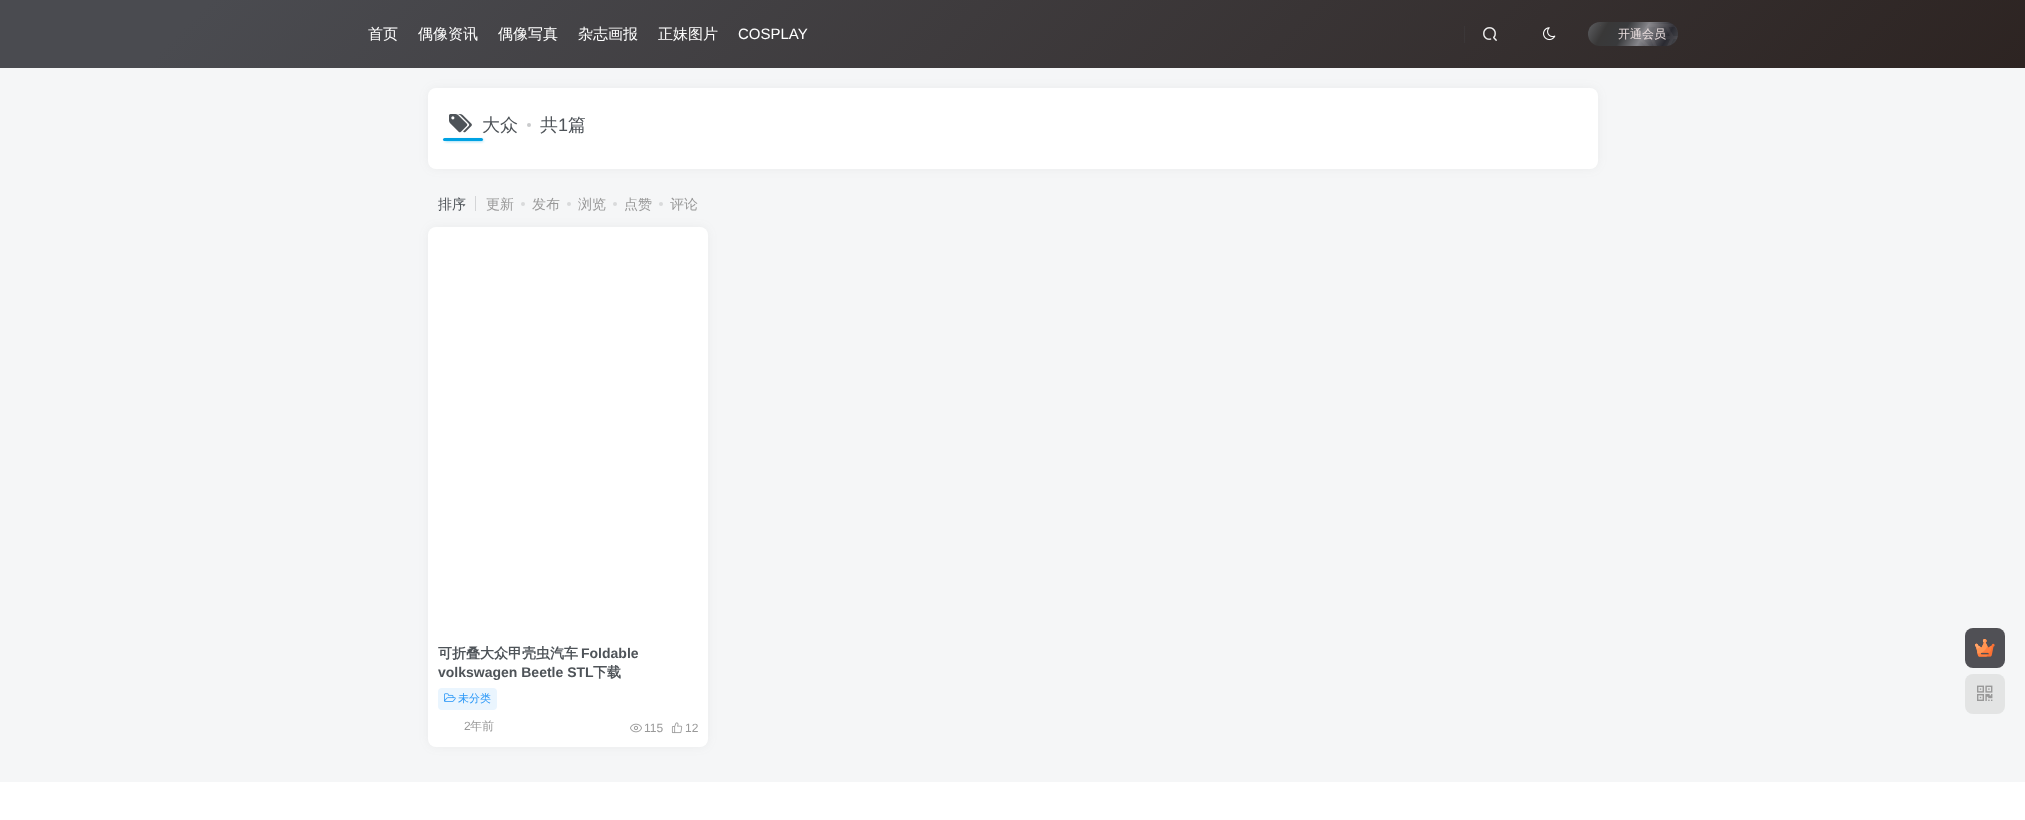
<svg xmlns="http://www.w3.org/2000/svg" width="2025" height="820">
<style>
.a{font:500 15px WenQuanYi Zen Hei;fill:#fff}
.b{font:15px Liberation Sans;fill:#fff}
.c{font:500 12px WenQuanYi Zen Hei;fill:#ece0e0}
.d{font:500 18px WenQuanYi Zen Hei;fill:#4e5358}
.e{font:18px Liberation Sans;fill:#4e5358}
.f{font:500 14px WenQuanYi Zen Hei;fill:#4e5358}
.g{font:500 14px WenQuanYi Zen Hei;fill:#999}
.h{font:bold 14px WenQuanYi Zen Hei;fill:#4e5358}
.i{font:bold 14px Liberation Sans;fill:#4e5358}
.j{font:500 11px WenQuanYi Zen Hei;fill:#2997f7}
.k{font:12px Liberation Sans;fill:#999}
.l{font:500 12px WenQuanYi Zen Hei;fill:#999}
</style>
<defs>
<linearGradient id="g1" gradientUnits="userSpaceOnUse" x1="489" y1="-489" x2="1536" y2="557"><stop offset="0.1" stop-color="#4a4b50"/><stop offset="1" stop-color="#2d2422"/></linearGradient>
<linearGradient id="g2" gradientUnits="userSpaceOnUse" x1="1672" y1="56" x2="1594" y2="12"><stop offset="0" stop-color="#4c4d51"/><stop offset="0.15" stop-color="#2a2a31"/><stop offset="0.4" stop-color="#85858a"/><stop offset="0.6" stop-color="#393a3c"/><stop offset="0.8" stop-color="#393838"/><stop offset="1" stop-color="#5e5f62"/></linearGradient>
</defs>
<rect width="100%" height="100%" fill="#f5f6f7"/>
<path fill="url(#g1)" d="M0 0h2025v68H0z"/>
<path fill="#3b3738" d="M1464 26h1v17H1464z"/>
<image href="1.png" x="1483" y="27" width="14" height="14"/>
<image href="2.png" x="1543" y="27" width="13" height="14"/>
<rect fill="url(#g2)" x="1588" y="22" width="90" height="24" rx="12"/>
<path fill="#4e4745" d="M1600 25h1v1H1600z"/>
<rect fill="#74747414" filter="blur(5px)" x="428" y="88" width="1170" height="81" rx="8"/>
<rect fill="#fff" x="428" y="88" width="1170" height="81" rx="8"/>
<image href="4.png" x="449" y="114" width="23" height="19"/>
<circle fill="#cacbcd" cx="529" cy="125" r="2"/>
<rect fill="#00a2e3" filter="blur(1.5px)" x="445" y="140" width="38" height="1" rx="0.5"/>
<rect fill="#00a2e3" x="443" y="138" width="40" height="3" rx="1.5"/>
<path fill="#d4d5d7" d="M475 196h1v15H475z"/>
<circle fill="#d9dadb" cx="523" cy="204" r="2"/>
<circle fill="#d9dadb" cx="569" cy="204" r="2"/>
<circle fill="#d9dadb" cx="615" cy="204" r="2"/>
<circle fill="#d9dadb" cx="661" cy="204" r="2"/>
<rect fill="#74747414" filter="blur(5px)" x="428" y="227" width="280" height="520" rx="8"/>
<rect fill="#fff" x="428" y="227" width="280" height="520" rx="8"/>
<rect fill="#eaf5fe" x="438" y="688" width="59" height="22" rx="4"/>
<image href="5.png" x="444" y="693" width="12" height="9"/>
<image href="6.png" x="630" y="723" width="12" height="10"/>
<image href="7.png" x="671" y="722" width="12" height="12"/>
<rect fill="#505055" x="1965" y="628" width="40" height="40" rx="8"/>
<image href="8.png" x="1975" y="639" width="20" height="18"/>
<rect fill="#e3e4e4" x="1965" y="674" width="40" height="40" rx="8"/>
<image href="9.png" x="1977" y="685" width="16" height="16"/>
<path fill="#fff" d="M0 782h2025v38H0z"/>
<text class="a" x="368" y="39">首页</text>
<text class="a" x="418" y="39">偶像资讯</text>
<text class="a" x="498" y="39">偶像写真</text>
<text class="a" x="578" y="39">杂志画报</text>
<text class="a" x="658" y="39">正妹图片</text>
<text class="b" x="738" y="39">COSPLAY</text>
<text class="c" x="1618" y="38">开通会员</text>
<image href="3.png" x="1638" y="24" width="40" height="22"/>
<text class="d" x="482" y="131">大众</text>
<text class="d" x="540" y="131">共</text>
<text class="e" x="558" y="131">1</text>
<text class="d" x="568" y="131">篇</text>
<text class="f" x="438" y="209">排序</text>
<text class="g" x="486" y="209">更新</text>
<text class="g" x="532" y="209">发布</text>
<text class="g" x="578" y="209">浏览</text>
<text class="g" x="624" y="209">点赞</text>
<text class="g" x="670" y="209">评论</text>
<text class="h" x="438" y="658">可折叠大众甲壳虫汽车</text>
<text class="i" x="581" y="658">Foldable</text>
<text class="i" x="438" y="677">volkswagen Beetle STL</text>
<text class="h" x="593" y="677">下载</text>
<text class="j" x="458" y="702">未分类</text>
<text class="k" x="464" y="730">2</text>
<text class="l" x="470" y="730">年前</text>
<text class="k" x="644" y="732">115</text>
<text class="k" x="685" y="732">12</text>
</svg>
